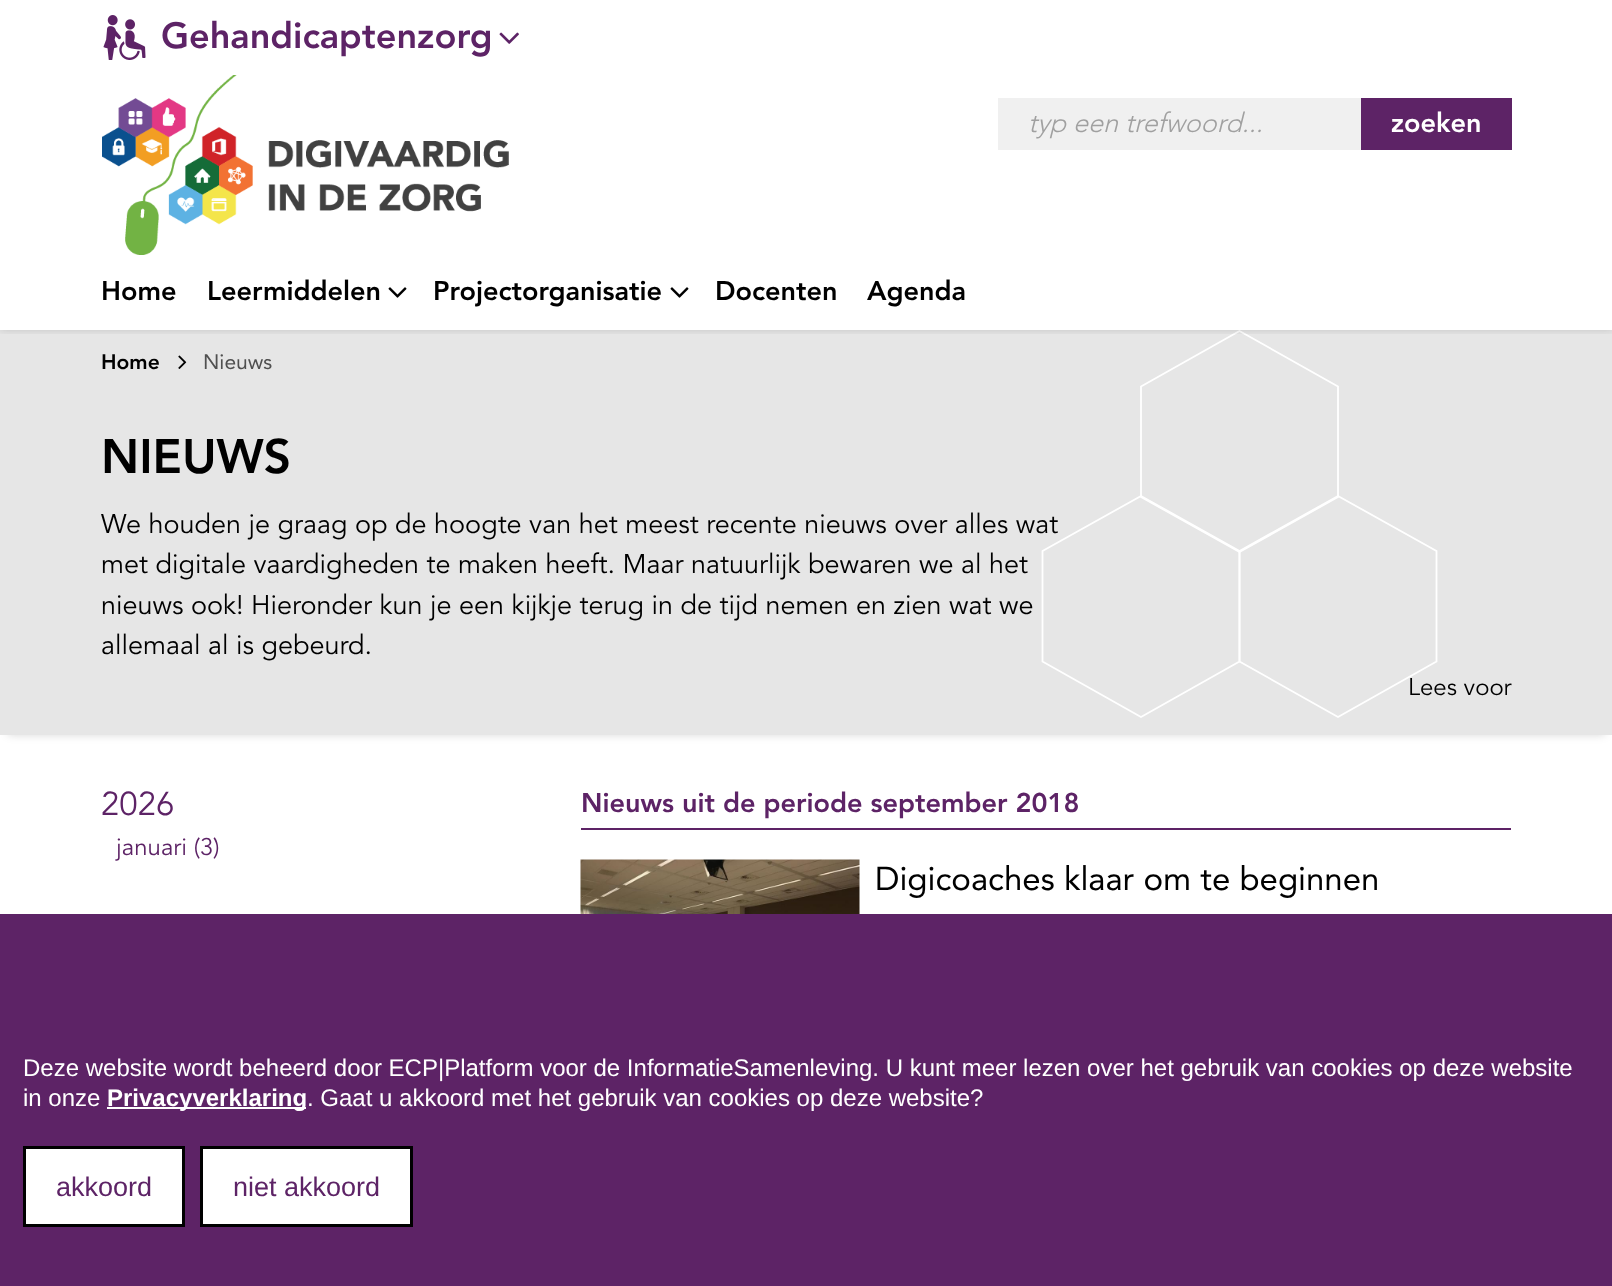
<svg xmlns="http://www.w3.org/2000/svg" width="1612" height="1286">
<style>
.a{font:900 36px Avenir;fill:#5d2366}
.b{font:italic 300 27px Avenir;fill:#a0a0a0}
.c{font:900 27px Avenir;fill:#fff}
.d{font:900 27px Avenir;fill:#000}
.e{font:900 21px Avenir;fill:#000}
.f{font:21px Avenir;fill:#505050}
.g{font:900 48px Avenir;fill:#000}
.h{font:27px 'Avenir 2';fill:#000}
.i{font:24px 'Avenir 2';fill:#000}
.j{font:33px 'Avenir 2';fill:#5d2366}
.k{font:24px 'Avenir 2';fill:#5d2366}
.l{font:900 27px Avenir;fill:#5d2366}
.m{font:33px Avenir;fill:#000}
.n{font:24px Liberation Sans;fill:#fff}
.o{font:bold 24px Liberation Sans;fill:#fff}
.p{font:27px Liberation Sans;fill:#5d2366}
</style>
<defs>
<clipPath id="clip1"><path d="M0 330h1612v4H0z"/></clipPath>
</defs>
<rect width="100%" height="100%" fill="#fff"/>
<path fill="#00000026" filter="blur(4px)" d="M8 345h1597v390H8z"/>
<path fill="#e6e6e6" d="M0 330h1612v405H0z"/>
<path fill="none" stroke="#fff" stroke-width="1.8" d="M1141 496l-98.5 55v110.5l98.5 55.5l98.5-55.5v-110.5z"/>
<path fill="none" stroke="#fff" stroke-width="1.8" d="M1239.5 331l-98.5 55.5v110.5l98.5 55l98.5-55v-110.5z"/>
<g clip-path="url(#clip1)">
<path fill="#00000026" filter="blur(4px)" d="M0 75h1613v255H0z"/>
</g>
<path fill="#fff" d="M0 69h1612v6H0z"/>
<image href="1.png" x="103" y="15" width="43" height="45"/>
<image href="2.png" x="499" y="32" width="20" height="12"/>
<image href="3.png" x="102" y="75" width="407" height="180"/>
<path fill="#f0f0f0" d="M998 98h363v52H998z"/>
<path fill="#5d2366" d="M1361 98h151v52H1361z"/>
<image href="4.png" x="388" y="287" width="19" height="11"/>
<image href="4.png" x="670" y="287" width="19" height="11"/>
<path fill="none" stroke="#fff" stroke-width="1.8" d="M1338 496l-98.5 55v110.5l98.5 55.5l98.5-55.5v-110.5z"/>
<image href="5.png" x="178" y="355" width="9" height="14"/>
<path fill="#5d2366" d="M581 828h930v2H581z"/>
<image href="6.png" x="580" y="859" width="280" height="55"/>
<path fill="#5d2366" d="M0 914h1612v372H0z"/>
<path fill="#fff" d="M107 1107h199v2H107z"/>
<path fill="#fff" stroke="#000" stroke-width="3" d="M24.5 1147.5h159v78H24.5z"/>
<path fill="#fff" stroke="#000" stroke-width="3" d="M201.5 1147.5h210v78H201.5z"/>
<text class="a" x="161" y="48">Gehandicaptenzorg</text>
<text class="b" x="1028" y="132">typ een trefwoord...</text>
<text class="c" x="1391" y="132">zoeken</text>
<text class="d" x="101" y="300">Home</text>
<text class="d" x="207" y="300">Leermiddelen</text>
<text class="d" x="433" y="300">Projectorganisatie</text>
<text class="d" x="715" y="300">Docenten</text>
<text class="d" x="867" y="300">Agenda</text>
<text class="e" x="101" y="369">Home</text>
<text class="f" x="203" y="369">Nieuws</text>
<text class="g" x="101" y="473">NIEUWS</text>
<text class="h" x="101" y="533">We houden je graag op de hoogte van het meest recente nieuws over alles wat</text>
<text class="h" x="101" y="573">met digitale vaardigheden te maken heeft. Maar natuurlijk bewaren we al het</text>
<text class="h" x="101" y="614">nieuws ook! Hieronder kun je een kijkje terug in de tijd nemen en zien wat we</text>
<text class="h" x="101" y="654">allemaal al is gebeurd.</text>
<text class="i" x="1408" y="695">Lees voor</text>
<text class="j" x="101" y="815">2026</text>
<text class="k" x="116" y="855">januari (3)</text>
<text class="l" x="581" y="812">Nieuws uit de periode september 2018</text>
<text class="m" x="875" y="890">Digicoaches klaar om te beginnen</text>
<text class="n" x="23" y="1076">Deze website wordt beheerd door ECP|Platform voor de InformatieSamenleving. U kunt meer lezen over het gebruik van cookies op deze website</text>
<text class="n" x="23" y="1106">in onze</text>
<text class="o" x="107" y="1106">Privacyverklaring</text>
<text class="n" x="307" y="1106">. Gaat u akkoord met het gebruik van cookies op deze website?</text>
<text class="p" x="56" y="1196">akkoord</text>
<text class="p" x="233" y="1196">niet akkoord</text>
</svg>
